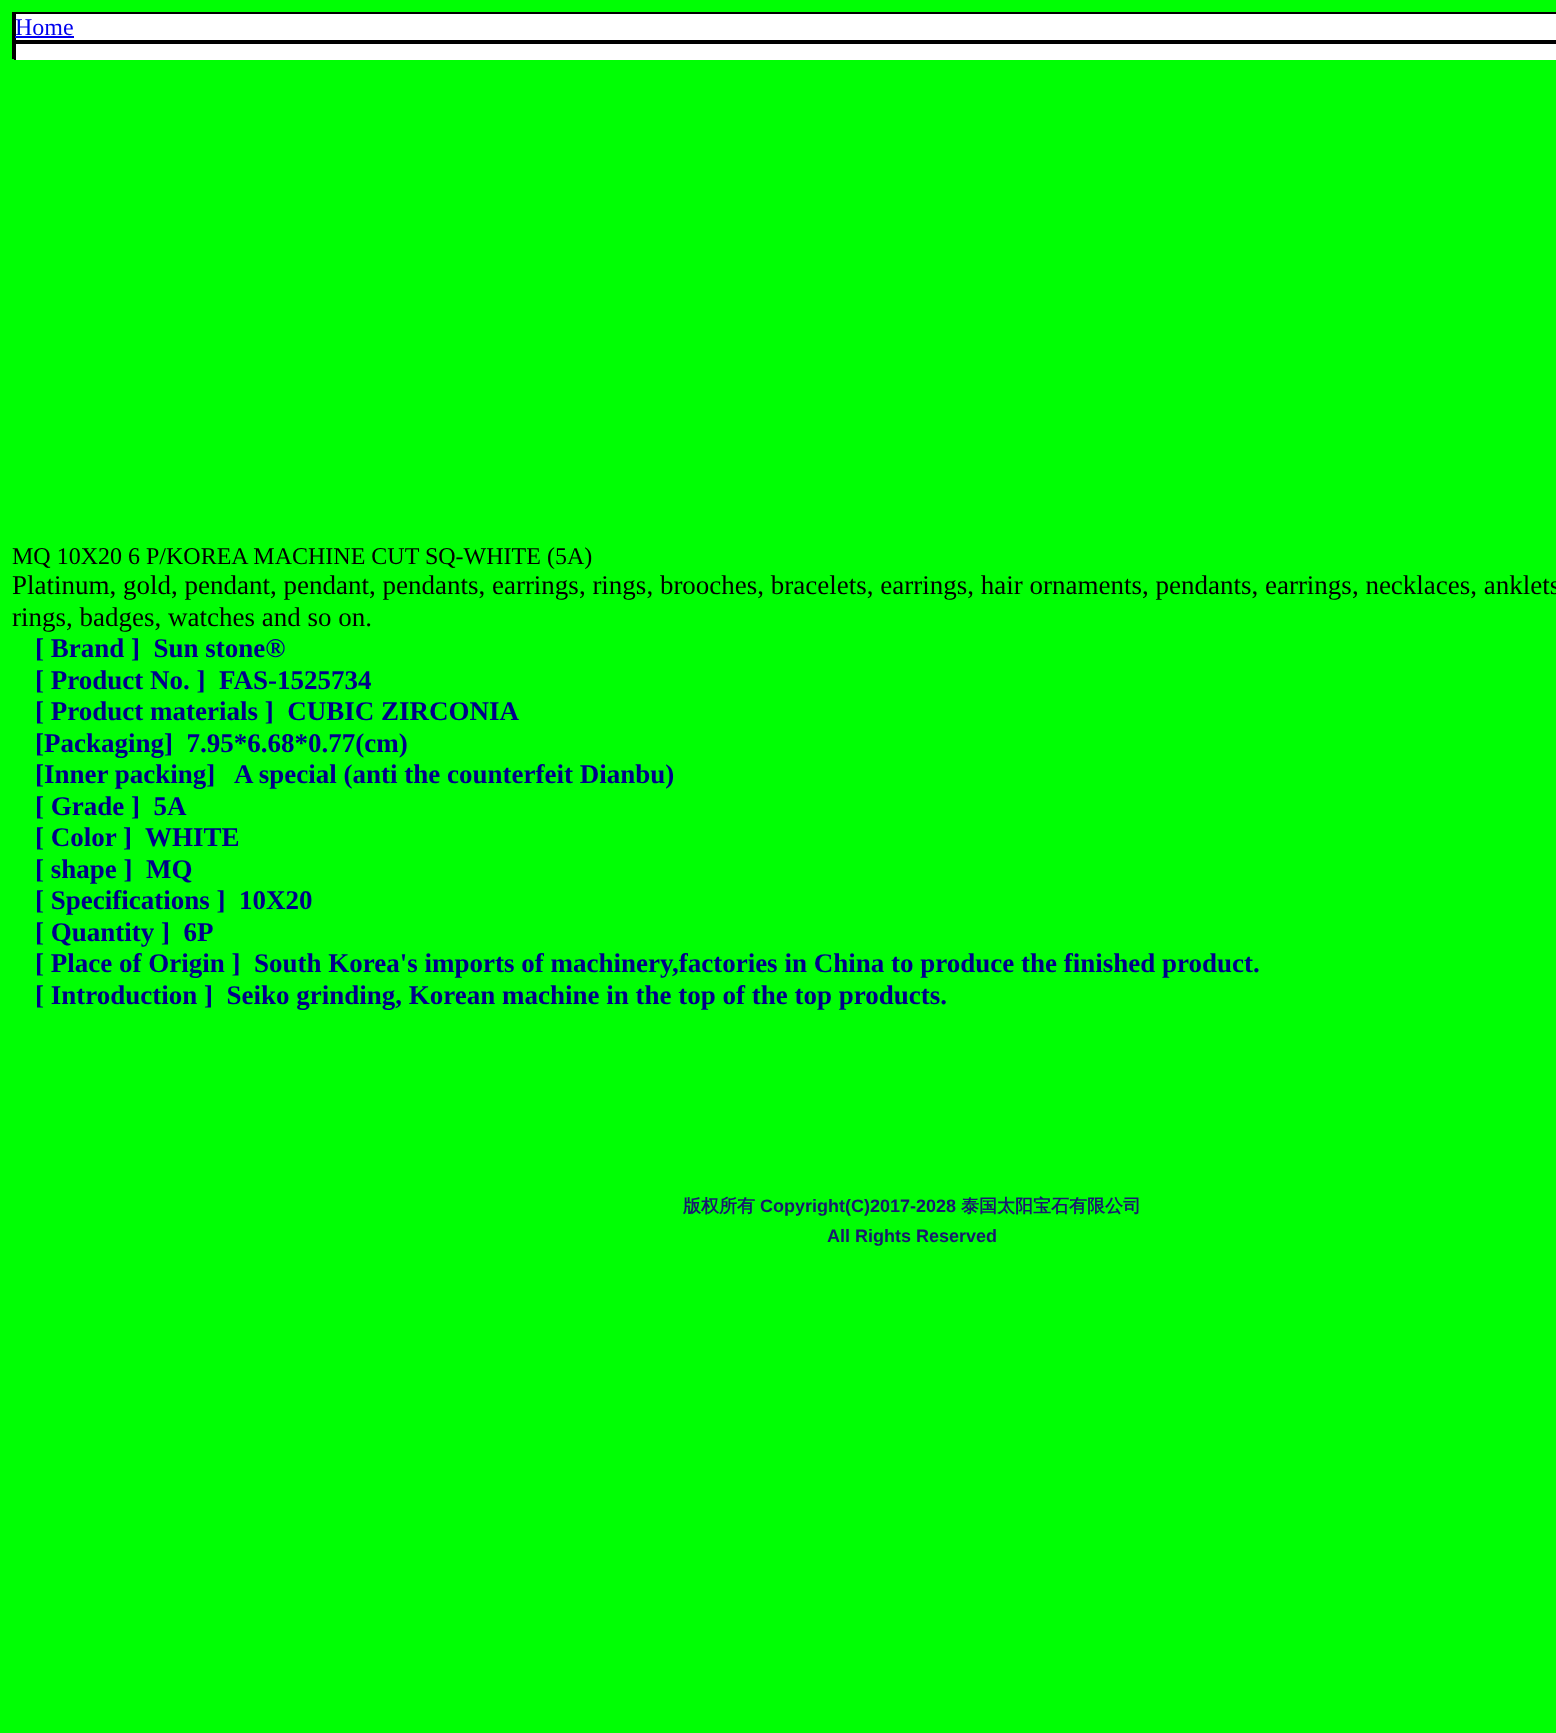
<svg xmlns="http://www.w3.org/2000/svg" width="1556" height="1733">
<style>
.a{font:24px Liberation Serif;fill:#00e}
.b{font:24px Liberation Serif;fill:#000}
.c{font:27px Liberation Serif;fill:#000}
.d{font:bold 27px Liberation Serif;fill:#00008b}
.e{font:bold 18px WenQuanYi Zen Hei;fill:#191970}
.f{font:bold 18px Liberation Sans;fill:#191970}
</style>
<defs>
<clipPath id="clip1"><path d="M12 12h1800v48H12z"/></clipPath>
</defs>
<rect width="100%" height="100%" fill="#00ff04"/>
<path fill="#000" d="M12 12h2v47H12z"/>
<path fill="#fff" stroke="#000" stroke-width="2" d="M15 13h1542v28H15z"/>
<path fill="#00e" d="M15 36h59v2H15z"/>
<path fill="#fff" d="M16 44h1540v16H16z"/>
<g clip-path="url(#clip1)">
<path fill="none" stroke="#000" stroke-width="2" d="M15 43h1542v28H15z"/>
</g>
<text class="a" x="15" y="35">Home</text>
<text class="b" x="12" y="564">MQ 10X20 6 P/KOREA MACHINE CUT SQ-WHITE (5A)</text>
<text class="c" x="12" y="594">Platinum, gold, pendant, pendant, pendants, earrings, rings, brooches, bracelets, earrings, hair ornaments, pendants, earrings, necklaces, anklets</text>
<text class="c" x="12" y="626">rings, badges, watches and so on.</text>
<text class="d" xml:space="preserve" x="35" y="657">[ Brand ]  Sun stone®</text>
<text class="d" xml:space="preserve" x="35" y="689">[ Product No. ]  FAS-1525734</text>
<text class="d" xml:space="preserve" x="35" y="720">[ Product materials ]  CUBIC ZIRCONIA</text>
<text class="d" xml:space="preserve" x="35" y="752">[Packaging]  7.95*6.68*0.77(cm)</text>
<text class="d" x="35" y="783">[Inner packing]</text>
<text class="d" x="234" y="783">A special (anti the counterfeit Dianbu)</text>
<text class="d" xml:space="preserve" x="35" y="815">[ Grade ]  5A</text>
<text class="d" xml:space="preserve" x="35" y="846">[ Color ]  WHITE</text>
<text class="d" xml:space="preserve" x="35" y="878">[ shape ]  MQ</text>
<text class="d" xml:space="preserve" x="35" y="909">[ Specifications ]  10X20</text>
<text class="d" xml:space="preserve" x="35" y="941">[ Quantity ]  6P</text>
<text class="d" xml:space="preserve" x="35" y="972">[ Place of Origin ]  South Korea's imports of machinery,factories in China to produce the finished product.</text>
<text class="d" xml:space="preserve" x="35" y="1004">[ Introduction ]  Seiko grinding, Korean machine in the top of the top products.</text>
<text class="e" x="683" y="1212">版权所有</text>
<text class="f" x="760" y="1212">Copyright(C)2017-2028</text>
<text class="e" x="961" y="1212">泰国太阳宝石有限公司</text>
<text class="f" x="827" y="1242">All Rights Reserved</text>
</svg>
